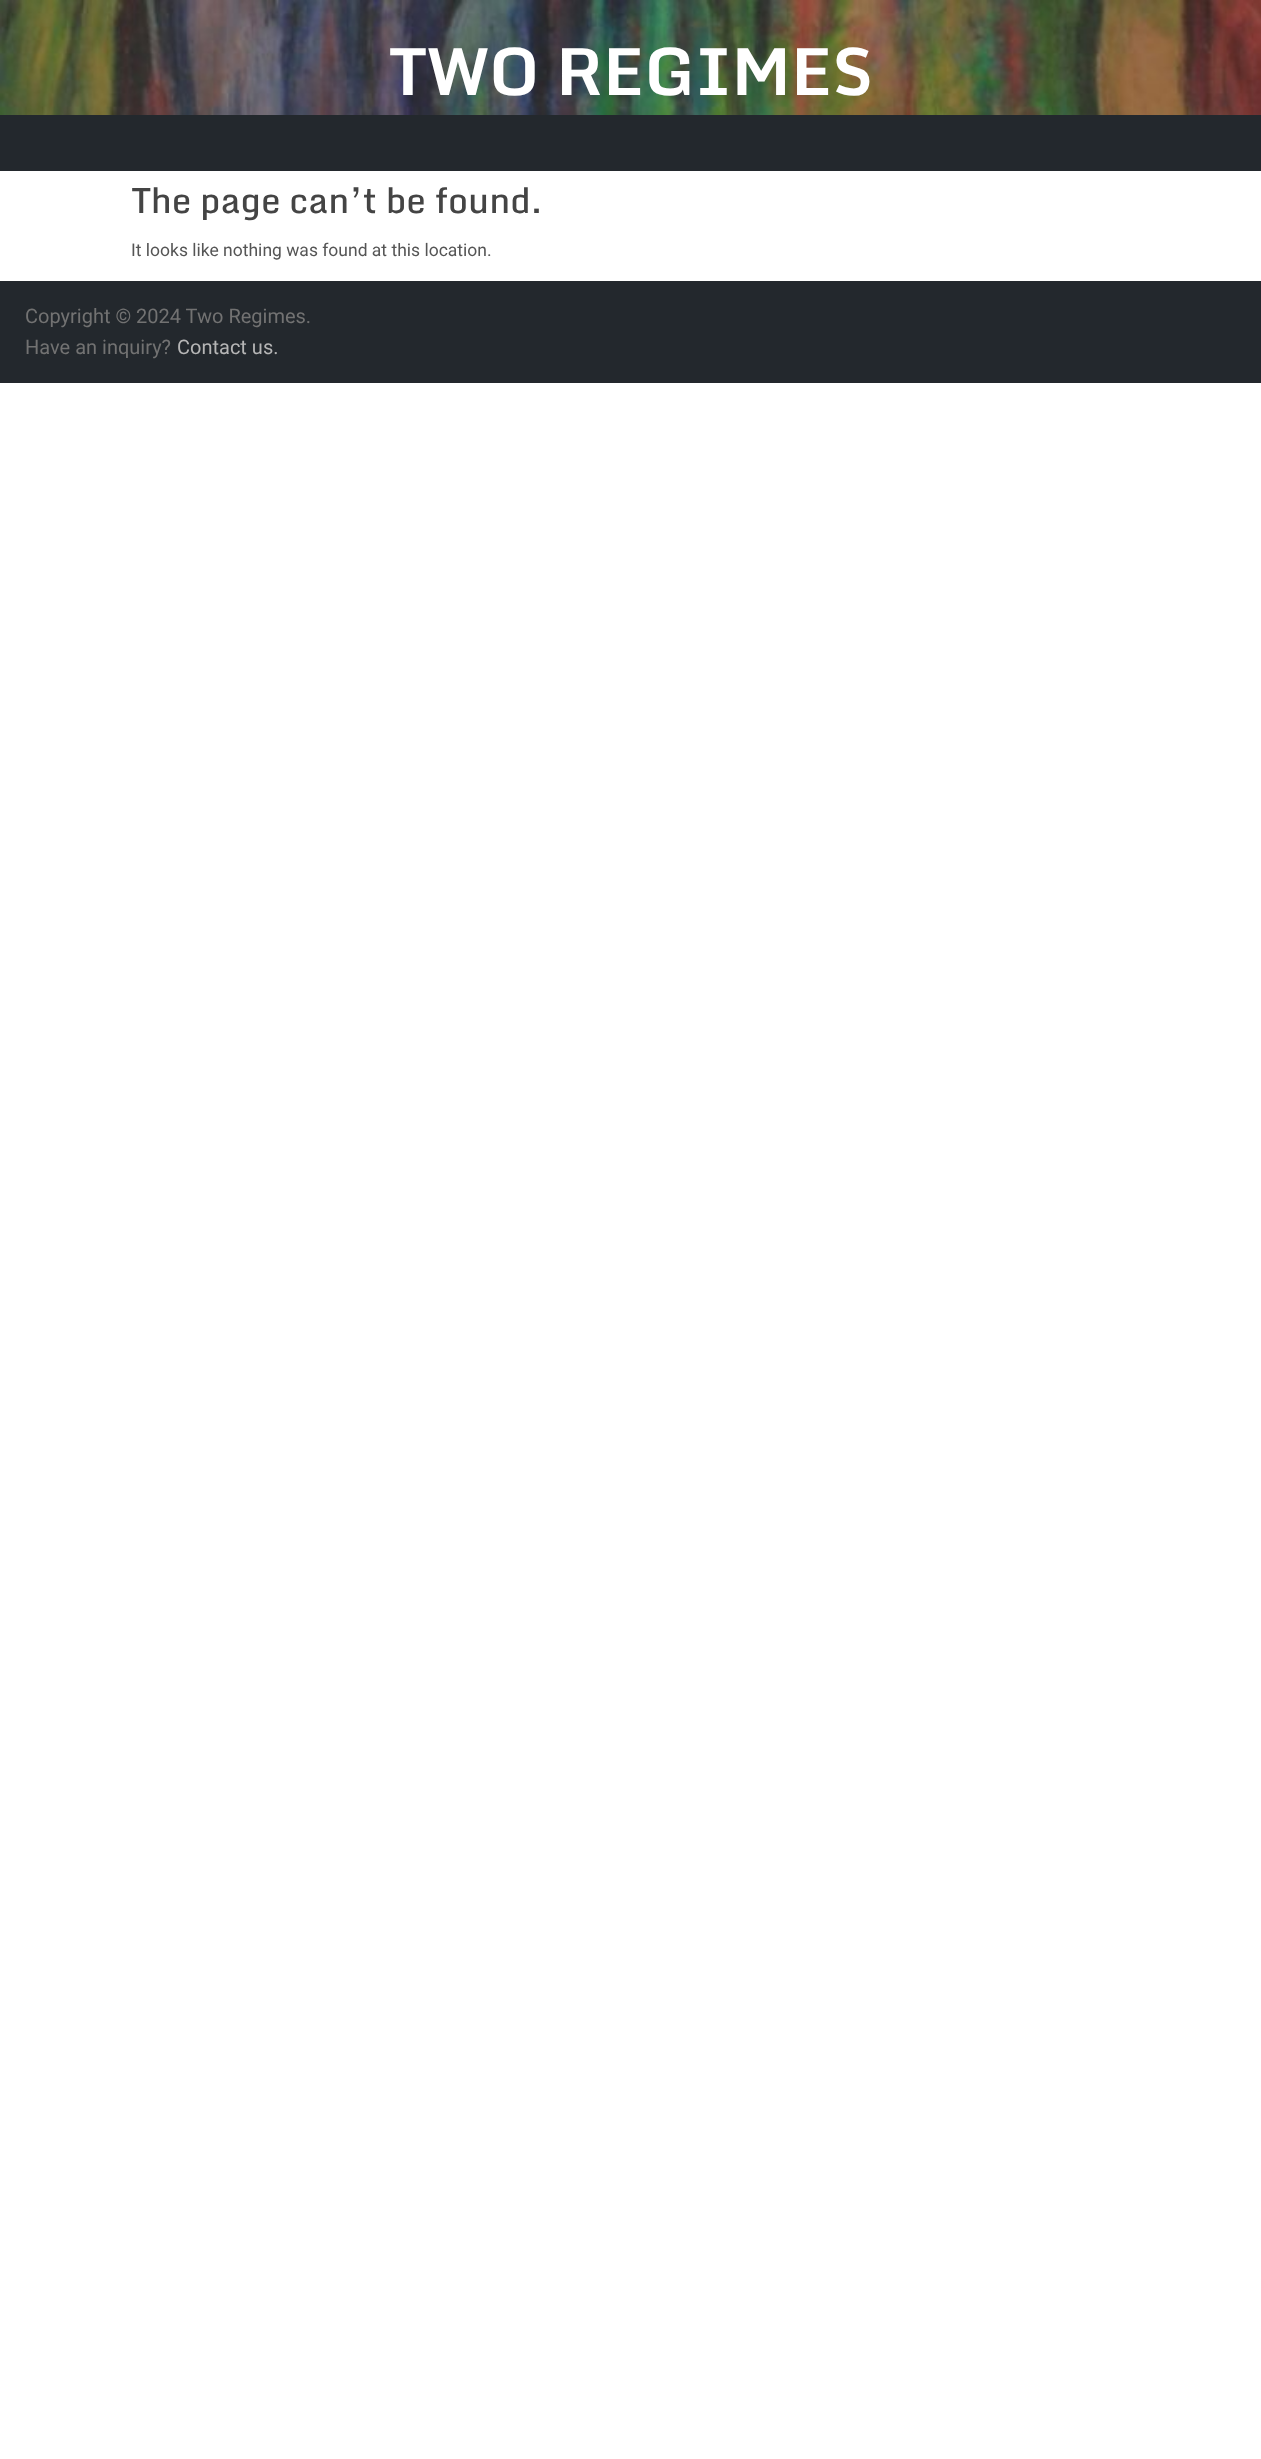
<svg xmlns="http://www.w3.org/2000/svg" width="1261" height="2459">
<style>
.a{font:bold 65px Monda;fill:#fff}
.b{font:500 35px Monda;fill:#444}
.c{font:17.5px Roboto;fill:#555}
.d{font:20px Roboto;fill:#727272}
.e{font:20px Roboto;fill:#b6b6b6}
</style>
<rect width="100%" height="100%" fill="#fff"/>
<image href="1.png" x="0" y="0" width="1261" height="115"/>
<path fill="#23282d" d="M0 115h1261v56H0z"/>
<path fill="#23282d" d="M0 281h1261v102H0z"/>
<text class="a" x="389" y="95">TWO REGIMES</text>
<text class="b" x="131" y="213">The page can’t be found.</text>
<text class="c" x="131" y="256">It looks like nothing was found at this location.</text>
<text class="d" x="25" y="323">Copyright © 2024 Two Regimes.</text>
<text class="d" x="25" y="354">Have an inquiry?</text>
<text class="e" x="177" y="354">Contact us.</text>
</svg>
